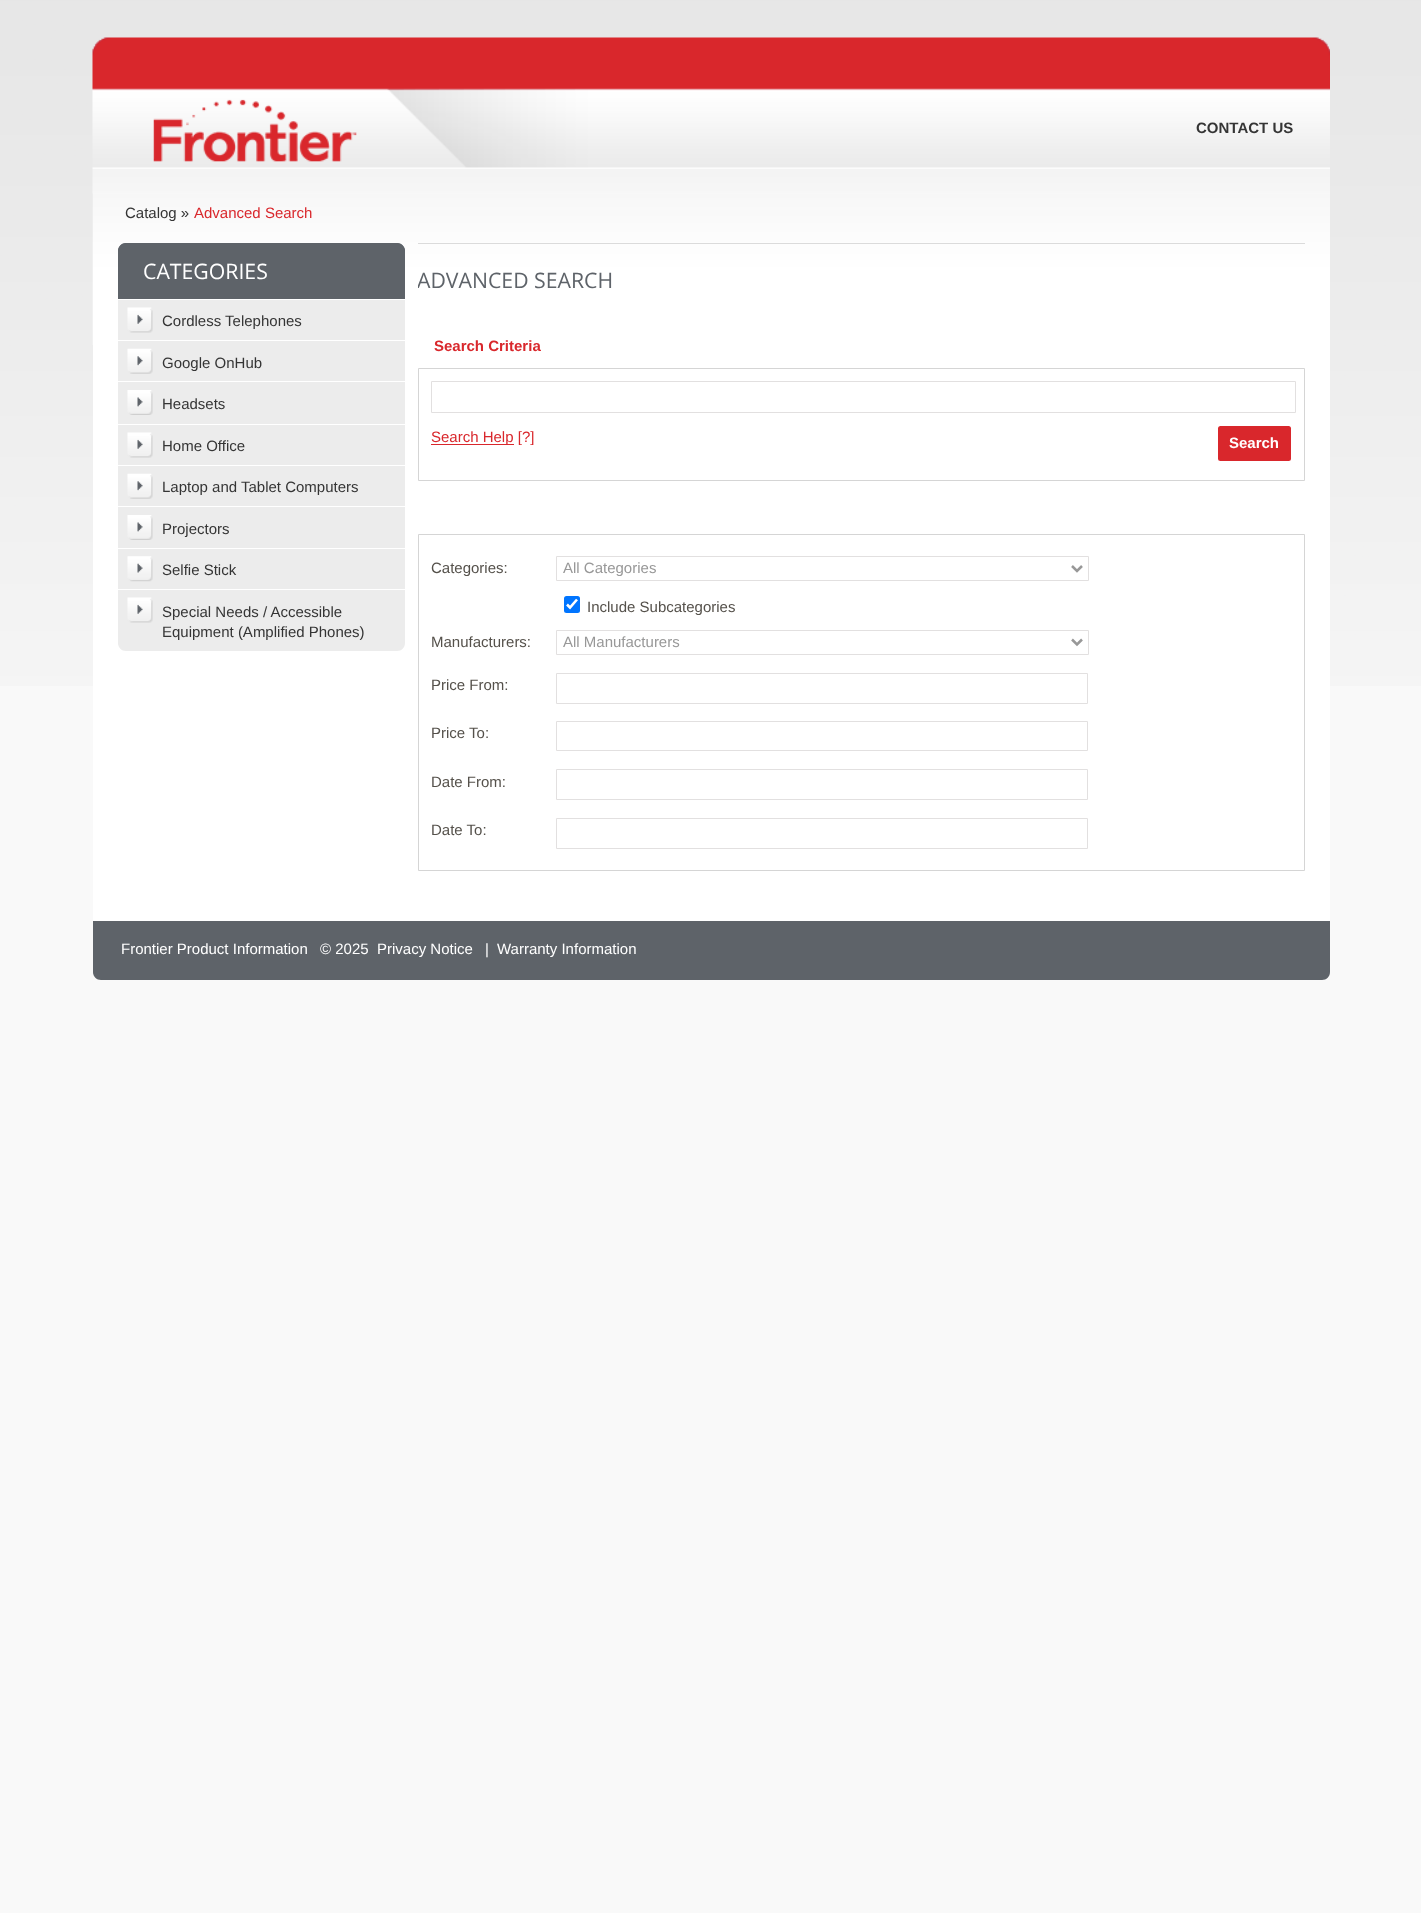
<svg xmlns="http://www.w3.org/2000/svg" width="1421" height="1913">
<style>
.a{font:bold 15px Liberation Sans;fill:#353535}
.b{font:15px Liberation Sans;fill:#353535}
.c{font:15px Liberation Sans;fill:#d9272c}
.d{font:21.25px Open Sans;fill:#fff}
.e{font:21.25px Open Sans;fill:#5e6369}
.f{font:bold 15px Liberation Sans;fill:#d9272c}
.g{font:bold 15px Liberation Sans;fill:#fff}
.h{font:15px Liberation Sans;fill:#55514b}
.i{font:15px Liberation Sans;fill:#989898}
.j{font:15px Liberation Sans;fill:#fff}
</style>
<defs>
<clipPath id="clip1"><path d="M418 244h887v64H418z"/></clipPath>
</defs>
<rect width="100%" height="100%" fill="#f9f9f9"/>
<image href="1.png" x="0" y="0" width="1421" height="686"/>
<path fill="#f9f9f9" d="M93 193h1237v493H93z"/>
<image href="2.png" x="92" y="37" width="1238" height="157"/>
<path fill="#fff" d="M93 345h1237v576H93z"/>
<image href="3.png" x="92" y="194" width="1238" height="151"/>
<path fill="#5e6369" d="M126 243h271c4.5 0 8 3.5 8 8v48h-287v-48c0-4.5 3.5-8 8-8z"/>
<path fill="#5e6369" d="M125 244h273c3 0 6 3 6 6v49h1v-48c0-4-4-8-8-8h-271c-4 0-8 4-8 8v48h1v-49c0-3 3-6 6-6z"/>
<path fill="#ececec" d="M118 300h287v40H118z"/>
<image href="4.png" x="127" y="307" width="26" height="26"/>
<path fill="#ececec" d="M118 341h287v40H118z"/>
<image href="5.png" x="127" y="348" width="26" height="26"/>
<path fill="#ececec" d="M118 382h287v42H118z"/>
<image href="6.png" x="127" y="390" width="26" height="25"/>
<path fill="#ececec" d="M118 425h287v40H118z"/>
<image href="4.png" x="127" y="432" width="26" height="26"/>
<path fill="#ececec" d="M118 466h287v40H118z"/>
<image href="5.png" x="127" y="473" width="26" height="26"/>
<path fill="#ececec" d="M118 507h287v41H118z"/>
<image href="6.png" x="127" y="515" width="26" height="25"/>
<path fill="#ececec" d="M118 549h287v40H118z"/>
<image href="7.png" x="127" y="556" width="26" height="26"/>
<path fill="#ececec" d="M118 589h287v54c0 4.5-3.5 8-8 8h-271c-4.5 0-8-3.5-8-8z"/>
<path fill="#fff" d="M118 589h287v1H118z"/>
<image href="4.png" x="127" y="597" width="26" height="26"/>
<path fill="#dbdbdb" d="M418 243h887v1H418z"/>
<path fill="none" stroke="#d5d5d5" d="M418.5 368.5h886v112H418.5z"/>
<path fill="none" stroke="#e2e0e0" d="M431.5 381.5h864v31H431.5z"/>
<path fill="#d9272c" d="M431 444h83v1H431z"/>
<rect fill="#d9272c" x="1218" y="426" width="73" height="35" rx="2.5"/>
<path fill="none" stroke="#d5d5d5" d="M418.5 534.5h886v336H418.5z"/>
<path fill="none" stroke="#e2e0e0" d="M556.5 556.5h532v24H556.5z"/>
<path fill="none" stroke="#989898" stroke-width="2.5" d="M1072 566l5 5l5-5"/>
<rect fill="#0075ff" x="564" y="596" width="16" height="17" rx="2.5"/>
<path fill="none" stroke="#fff" stroke-width="2.6" d="M567 604.5l3 3l7-8"/>
<path fill="none" stroke="#e2e0e0" d="M556.5 630.5h532v24H556.5z"/>
<path fill="none" stroke="#989898" stroke-width="2.5" d="M1072 639.5l5 5l5-5"/>
<path fill="none" stroke="#e2e0e0" d="M556.5 673.5h531v30H556.5z"/>
<path fill="none" stroke="#e2e0e0" d="M556.5 721.5h531v29H556.5z"/>
<path fill="none" stroke="#e2e0e0" d="M556.5 769.5h531v30H556.5z"/>
<path fill="none" stroke="#e2e0e0" d="M556.5 818.5h531v30H556.5z"/>
<path fill="#5e6369" d="M93 921h1237v51c0 4.5-3.5 8-8 8h-1221c-4.5 0-8-3.5-8-8z"/>
<text class="a" x="1196" y="133">CONTACT US</text>
<text class="b" x="125" y="218">Catalog »</text>
<text class="c" x="194" y="218">Advanced Search</text>
<text class="d" x="143" y="279">CATEGORIES</text>
<text class="b" x="162" y="326">Cordless Telephones</text>
<text class="b" x="162" y="368">Google OnHub</text>
<text class="b" x="162" y="409">Headsets</text>
<text class="b" x="162" y="451">Home Office</text>
<text class="b" x="162" y="492">Laptop and Tablet Computers</text>
<text class="b" x="162" y="534">Projectors</text>
<text class="b" x="162" y="575">Selfie Stick</text>
<text class="b" x="162" y="617">Special Needs / Accessible</text>
<text class="b" x="162" y="637">Equipment (Amplified Phones)</text>
<g clip-path="url(#clip1)">
<text class="e" x="417" y="288">ADVANCED SEARCH</text>
</g>
<text class="f" x="434" y="351">Search Criteria</text>
<text class="c" x="431" y="442">Search Help [?]</text>
<text class="g" x="1229" y="448">Search</text>
<text class="h" x="431" y="573">Categories:</text>
<text class="i" x="563" y="573">All Categories</text>
<text class="h" x="587" y="612">Include Subcategories</text>
<text class="h" x="431" y="647">Manufacturers:</text>
<text class="i" x="563" y="647">All Manufacturers</text>
<text class="h" x="431" y="690">Price From:</text>
<text class="h" x="431" y="738">Price To:</text>
<text class="h" x="431" y="787">Date From:</text>
<text class="h" x="431" y="835">Date To:</text>
<text class="j" x="121" y="954">Frontier Product Information</text>
<text class="j" x="320" y="954">© 2025</text>
<text class="j" x="377" y="954">Privacy Notice</text>
<text class="j" x="485" y="954">|</text>
<text class="j" x="497" y="954">Warranty Information</text>
</svg>
